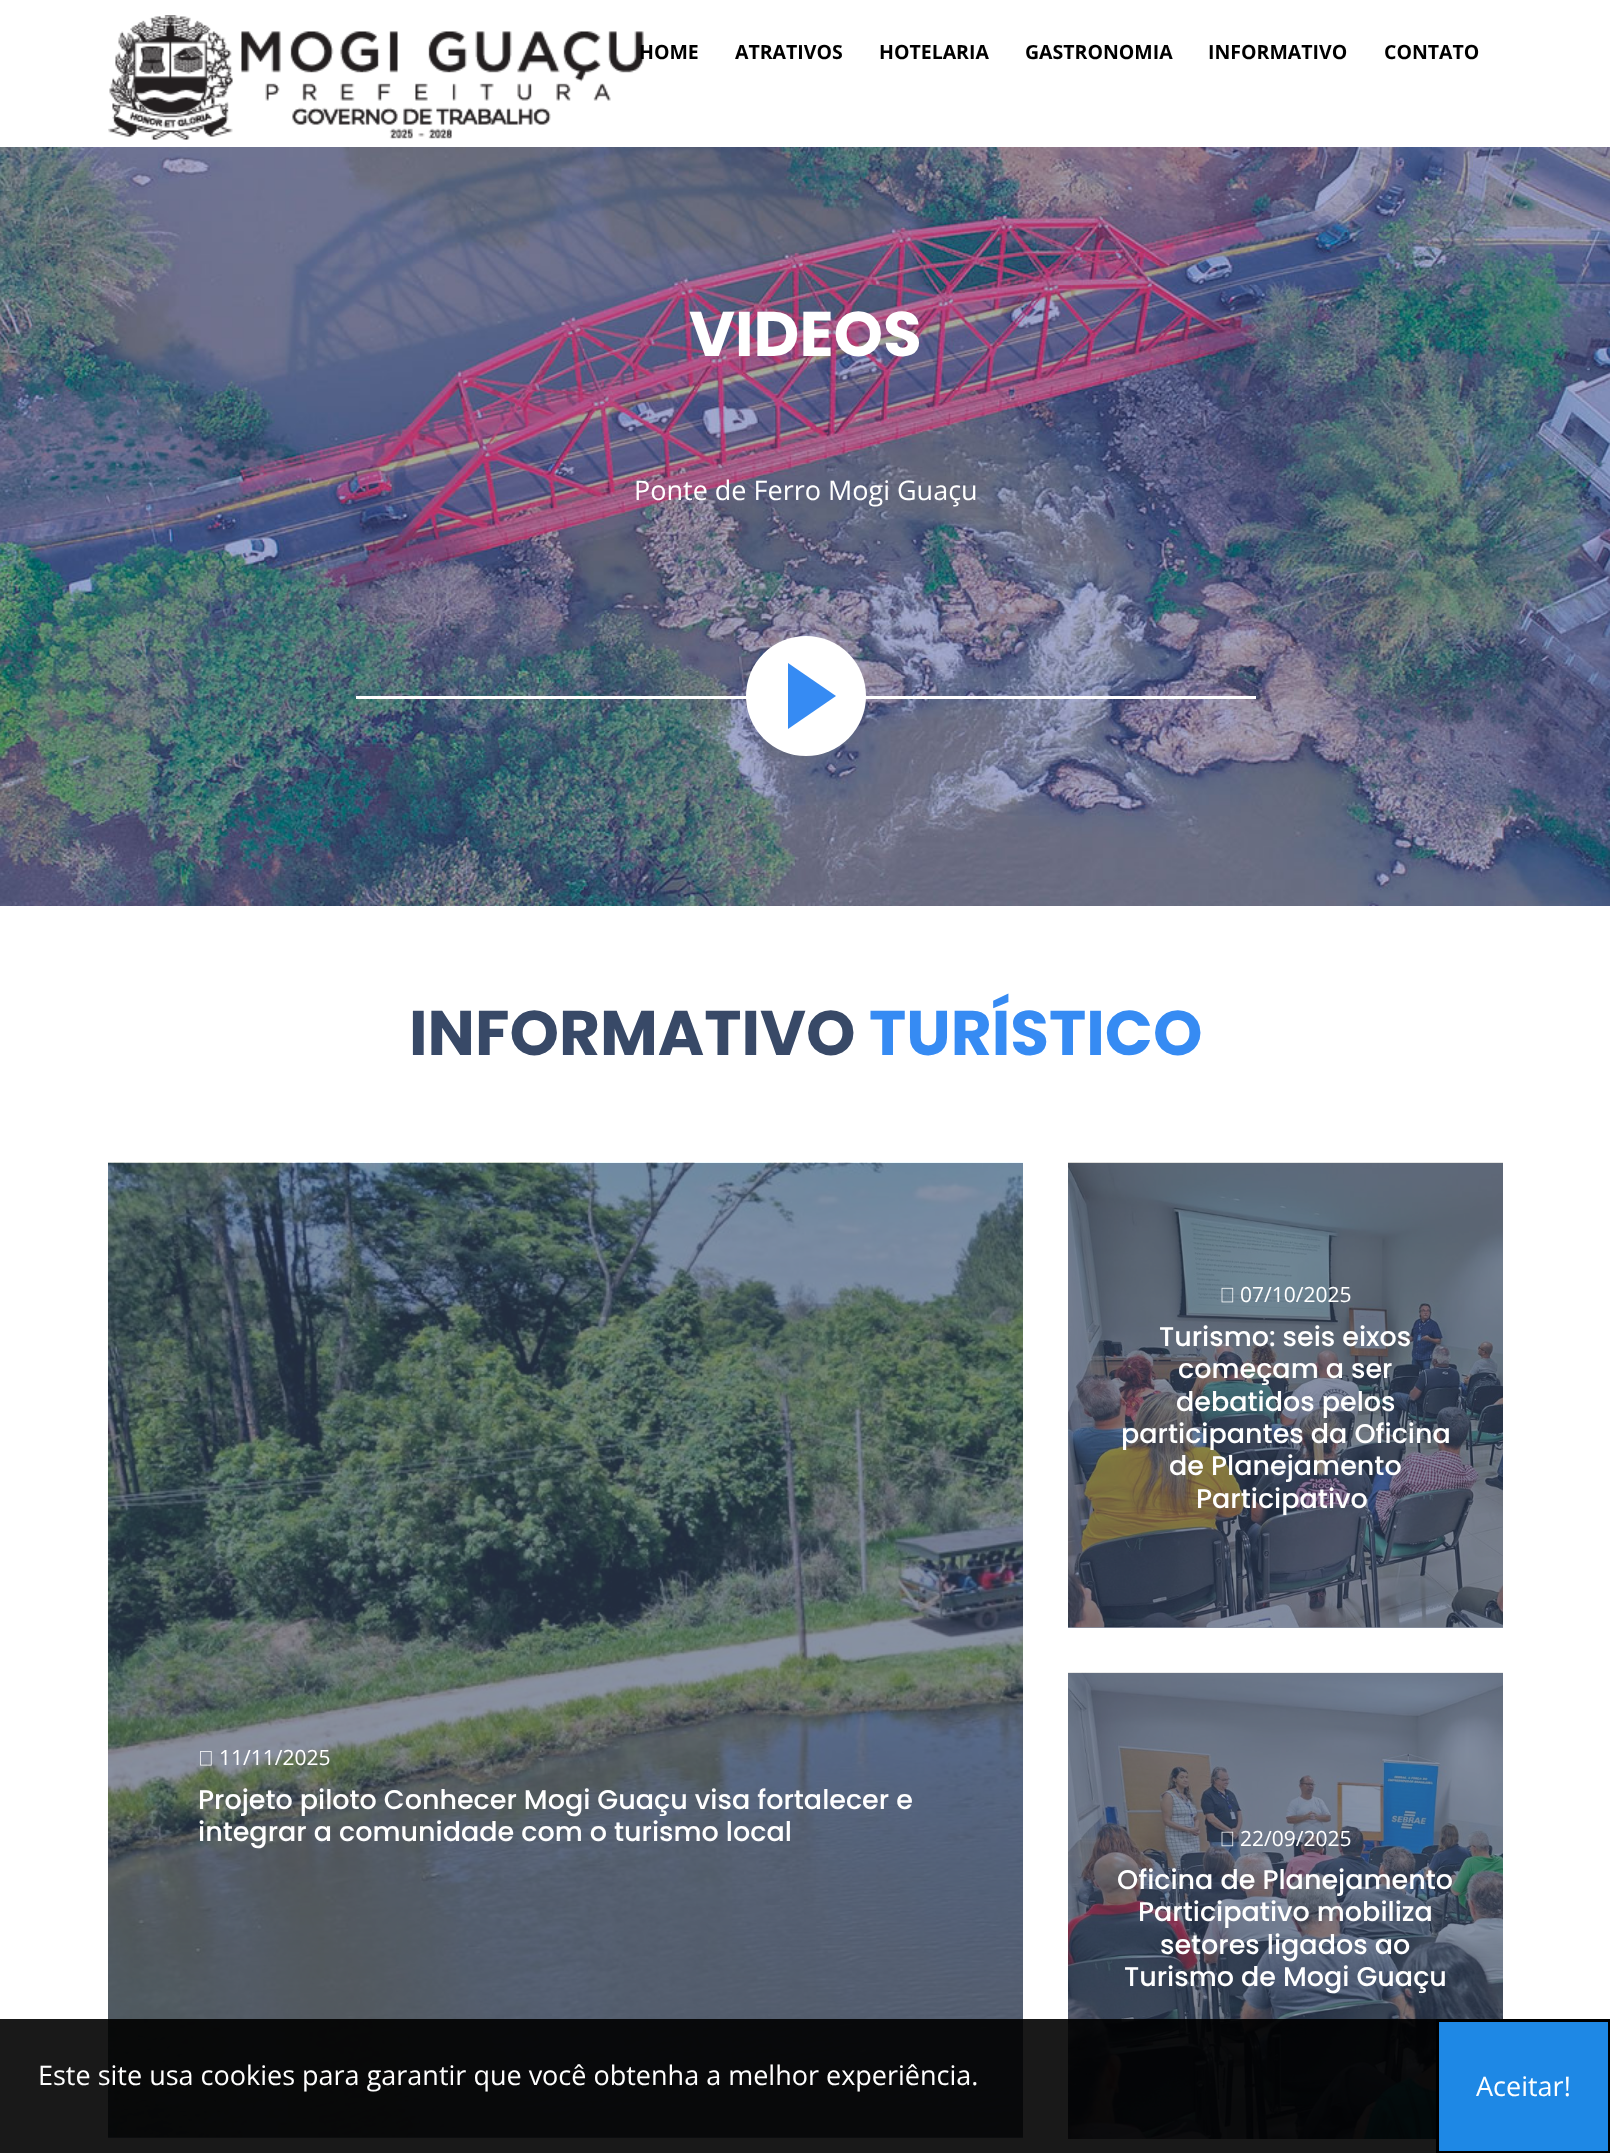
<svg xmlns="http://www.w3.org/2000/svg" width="1610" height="2153">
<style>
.a{font:bold 19.5px Open Sans;fill:#000}
.b{font:bold 63px Poppins;fill:#fff}
.c{font:27px Open Sans;fill:#fff}
.d{font:bold 63px Poppins;fill:#384967}
.e{font:bold 63px Poppins;fill:#368bf3}
.f{font:21px Open Sans;fill:#fff}
.g{font:500 27px Poppins;fill:#fff}
</style>
<rect width="100%" height="100%" fill="#fff"/>
<path fill="#8892a4" d="M1068 1627h435v1H1068z"/>
<path fill="#8892a4" d="M108 2137h915v1H108z"/>
<image href="1.png" x="108" y="15" width="536" height="125"/>
<image href="2.png" x="0" y="147" width="1610" height="759"/>
<path fill="#fff" d="M356 696h900v3H356z"/>
<circle fill="#fff" cx="806" cy="696" r="60"/>
<path fill="#368bf3" d="M788 729v-66l48 33z"/>
<image href="3.png" x="108" y="1162" width="915" height="976"/>
<image href="4.png" x="200" y="1751" width="12" height="15"/>
<image href="5.png" x="1068" y="1162" width="435" height="466"/>
<image href="6.png" x="1221" y="1287" width="13" height="16"/>
<image href="7.png" x="1068" y="1672" width="435" height="467"/>
<image href="8.png" x="1221" y="1831" width="13" height="16"/>
<path fill="#000000e6" d="M0 2019h1436v134H0z"/>
<path fill="#1e88e5" stroke="#000" stroke-width="3" d="M1437.5 2020.5h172v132H1437.5z"/>
<text class="a" x="639" y="59">HOME</text>
<text class="a" x="735" y="59">ATRATIVOS</text>
<text class="a" x="879" y="59">HOTELARIA</text>
<text class="a" x="1025" y="59">GASTRONOMIA</text>
<text class="a" x="1208" y="59">INFORMATIVO</text>
<text class="a" x="1384" y="59">CONTATO</text>
<text class="b" x="689" y="356">VIDEOS</text>
<text class="c" x="634" y="500">Ponte de Ferro Mogi Guaçu</text>
<text class="d" x="409" y="1055">INFORMATIVO</text>
<text class="e" x="869" y="1055">TURÍSTICO</text>
<text class="f" x="219" y="1765">11/11/2025</text>
<text class="g" x="198" y="1809">Projeto piloto Conhecer Mogi Guaçu visa fortalecer e</text>
<text class="g" x="198" y="1841">integrar a comunidade com o turismo local</text>
<text class="f" x="1240" y="1302">07/10/2025</text>
<text class="g" x="1159" y="1346">Turismo: seis eixos</text>
<text class="g" x="1178" y="1378">começam a ser</text>
<text class="g" x="1176" y="1411">debatidos pelos</text>
<text class="g" x="1121" y="1443">participantes da Oficina</text>
<text class="g" x="1169" y="1475">de Planejamento</text>
<text class="g" x="1196" y="1508">Participativo</text>
<text class="f" x="1240" y="1846">22/09/2025</text>
<text class="g" x="1117" y="1889">Oficina de Planejamento</text>
<text class="g" x="1138" y="1921">Participativo mobiliza</text>
<text class="g" x="1160" y="1954">setores ligados ao</text>
<text class="g" x="1124" y="1986">Turismo de Mogi Guaçu</text>
<text class="c" x="38" y="2085">Este site usa cookies para garantir que você obtenha a melhor experiência.</text>
<text class="c" x="1476" y="2096">Aceitar!</text>
</svg>
